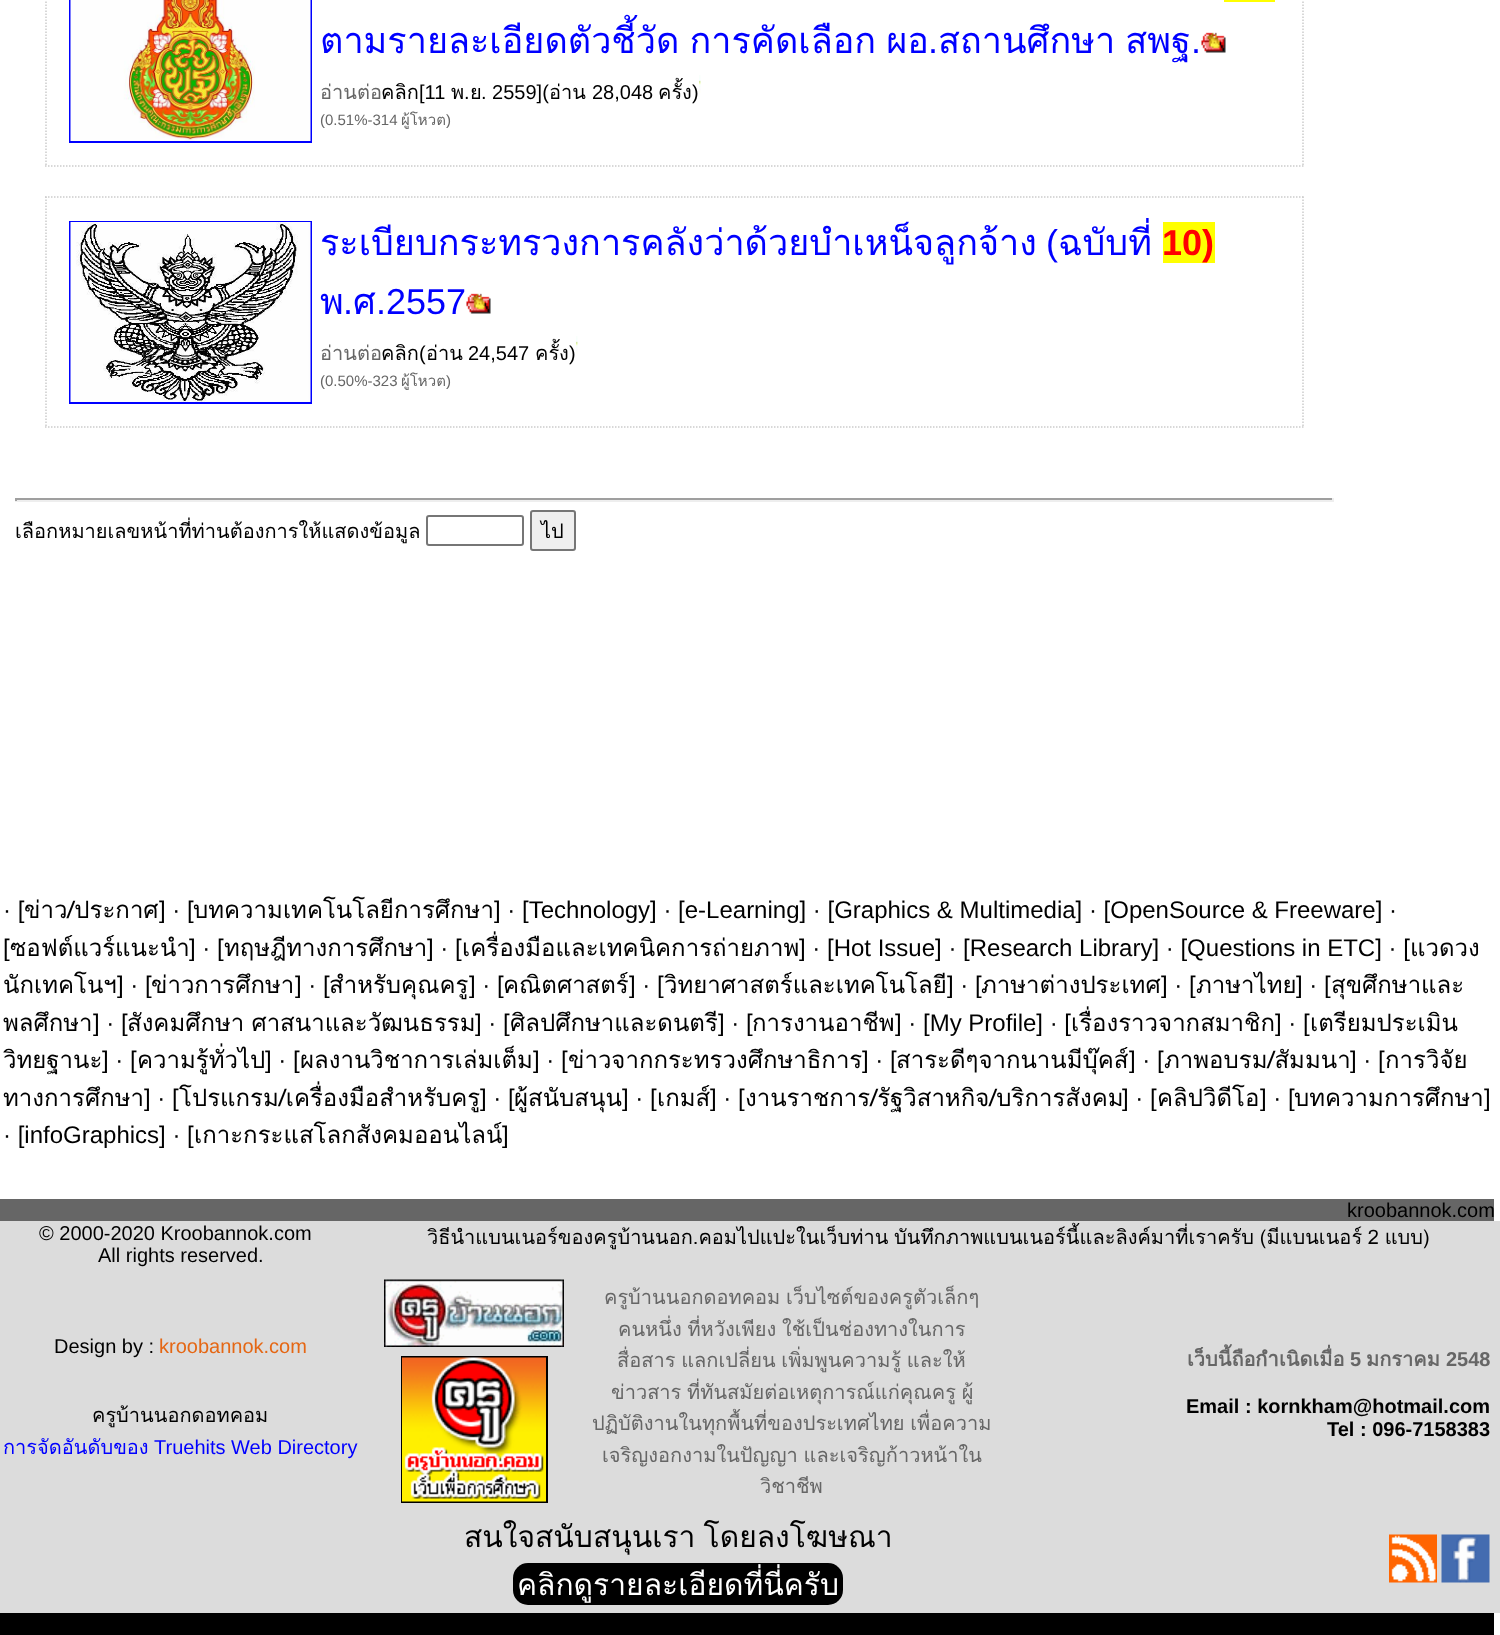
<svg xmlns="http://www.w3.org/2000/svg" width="1500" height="1635">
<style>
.a{font:36px Loma;fill:#00f}
.b{font:36px Liberation Sans;fill:#00f}
.c{font:20px Loma;fill:#666}
.d{font:20px Loma;fill:#000}
.e{font:20px Liberation Sans;fill:#000}
.f{font:15px Liberation Sans;fill:#666}
.g{font:15px Loma;fill:#666}
.h{font:bold 36px Liberation Sans;fill:#f00}
.i{font:24px Liberation Sans;fill:#000}
.j{font:24px Loma;fill:#000}
.k{font:20px Liberation Sans;fill:#e56714}
.l{font:20px Loma;fill:#00f}
.m{font:20px Liberation Sans;fill:#00f}
.n{font:bold 20px Loma;fill:#666}
.o{font:bold 20px Liberation Sans;fill:#666}
.p{font:bold 20px Liberation Sans;fill:#000}
.q{font:30px Loma;fill:#000}
.r{font:30px Loma;fill:#fff}
</style>
<rect width="100%" height="100%" fill="#fff"/>
<path fill="none" stroke="#ccc" stroke-width="1.5" stroke-dasharray="1.5 1.5" d="M1303-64.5v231"/>
<path fill="none" stroke="#ccc" stroke-width="1.5" stroke-dasharray="1.5 1.5" d="M45 166h1258.5"/>
<path fill="none" stroke="#ccc" stroke-width="1.5" stroke-dasharray="1.5 1.5" d="M46-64.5v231"/>
<path fill="none" stroke="#00f" stroke-width="2" d="M70 -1h241v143H70z"/>
<image href="1.png" x="70" y="0" width="241" height="141"/>
<path fill="#ff0" d="M1224 0h51v2H1224z"/>
<image href="2.png" x="1201" y="32" width="25" height="21"/>
<image href="3.png" x="699" y="75" width="2" height="18"/>
<path fill="none" stroke="#ccc" stroke-width="1.5" stroke-dasharray="1.5 1.5" d="M45 197h1258.5"/>
<path fill="none" stroke="#ccc" stroke-width="1.5" stroke-dasharray="1.5 1.5" d="M1303 196.5v231"/>
<path fill="none" stroke="#ccc" stroke-width="1.5" stroke-dasharray="1.5 1.5" d="M45 427h1258.5"/>
<path fill="none" stroke="#ccc" stroke-width="1.5" stroke-dasharray="1.5 1.5" d="M46 196.5v231"/>
<path fill="none" stroke="#00f" stroke-width="2" d="M70 222h241v181H70z"/>
<image href="4.png" x="70" y="222" width="241" height="180"/>
<path fill="#ff0" d="M1163 222h52v41H1163z"/>
<image href="2.png" x="466" y="293" width="25" height="21"/>
<image href="3.png" x="576" y="336" width="2" height="18"/>
<path fill="#9f9f9f" d="M15 498h1319v2H15z"/>
<path fill="#eee" d="M1332 498h2v3H1332z"/>
<path fill="#eee" d="M15 500h1319v2H15z"/>
<path fill="#9f9f9f" d="M15 498h2v3H15z"/>
<rect fill="none" stroke="#767676" stroke-width="2" x="427" y="516" width="96" height="29" rx="2"/>
<rect fill="#efefef" stroke="#767676" stroke-width="2" x="531" y="511" width="44" height="39" rx="2"/>
<path fill="#666" d="M0 1199h1494v22H0z"/>
<path fill="#dcdcdc" d="M0 1221h1500v392H0z"/>
<path fill="none" stroke="#000" stroke-width="2" d="M402 1357h145v145H402z"/>
<image href="5.png" x="402" y="1357" width="144" height="145"/>
<image href="6.png" x="384" y="1279" width="180" height="68"/>
<rect fill="#000" x="513" y="1563" width="330" height="42" rx="15"/>
<image href="7.png" x="1389" y="1534" width="48" height="49"/>
<image href="8.png" x="1441" y="1534" width="49" height="49"/>
<path fill="#000" d="M0 1613h1494v22H0z"/>
<text class="a" x="320" y="53" word-spacing="-2">ตามรายละเอียดตัวชี้วัด การคัดเลือก ผอ</text>
<text class="b" x="928" y="53">.</text>
<text class="a" x="938" y="53" word-spacing="-2">สถานศึกษา สพฐ</text>
<text class="b" x="1191" y="53">.</text>
<text class="c" x="320" y="99">อ่านต่อ</text>
<text class="d" x="381" y="99">คลิก</text>
<text class="e" x="419" y="99">[11</text>
<text class="d" x="451" y="99">พ</text>
<text class="e" x="464" y="99">.</text>
<text class="d" x="470" y="99">ย</text>
<text class="e" x="481" y="99">. 2559](</text>
<text class="d" x="549" y="99">อ่าน</text>
<text class="e" x="592" y="99">28,048</text>
<text class="d" x="658" y="99">ครั้ง</text>
<text class="e" x="692" y="99">)</text>
<text class="f" x="320" y="125">(0.51%-314</text>
<text class="g" x="401" y="125">ผู้โหวต</text>
<text class="f" x="446" y="125">)</text>
<text class="a" x="320" y="255">ระเบียบกระทรวงการคลังว่าด้วยบำเหน็จลูกจ้าง</text>
<text class="b" x="1046" y="255">(</text>
<text class="a" x="1058" y="255">ฉบับที่</text>
<text class="h" x="1162" y="255">10)</text>
<text class="a" x="320" y="314">พ</text>
<text class="b" x="343" y="314">.</text>
<text class="a" x="353" y="314">ศ</text>
<text class="b" x="376" y="314">.2557</text>
<text class="c" x="320" y="360">อ่านต่อ</text>
<text class="d" x="381" y="360">คลิก</text>
<text class="d" x="535" y="360">ครั้ง</text>
<text class="e" x="419" y="360">(</text>
<text class="d" x="426" y="360">อ่าน</text>
<text class="e" x="468" y="360">24,547</text>
<text class="e" x="569" y="360">)</text>
<text class="f" x="320" y="386">(0.50%-323</text>
<text class="g" x="401" y="386">ผู้โหวต</text>
<text class="f" x="446" y="386">)</text>
<text class="d" x="15" y="538">เลือกหมายเลขหน้าที่ท่านต้องการให้แสดงข้อมูล</text>
<text class="d" x="541" y="538">ไป</text>
<text class="i" x="3" y="918">· [</text>
<text class="j" x="24" y="918">ข่าว/ประกาศ</text>
<text class="i" x="159" y="918">] · [</text>
<text class="j" x="193" y="918">บทความเทคโนโลยีการศึกษา</text>
<text class="i" x="494" y="918">] · [Technology] · [e-Learning] · [Graphics &amp; Multimedia] · [OpenSource &amp; Freeware] ·</text>
<text class="i" x="3" y="956">[</text>
<text class="j" x="10" y="956">ซอฟต์แวร์แนะนำ</text>
<text class="i" x="189" y="956">] · [</text>
<text class="j" x="224" y="956">ทฤษฎีทางการศึกษา</text>
<text class="i" x="427" y="956">] · [</text>
<text class="j" x="462" y="956">เครื่องมือและเทคนิคการถ่ายภาพ</text>
<text class="i" x="799" y="956">] · [Hot Issue] · [Research Library] · [Questions in ETC] · [</text>
<text class="j" x="1410" y="956">แวดวง</text>
<text class="j" x="3" y="993">นักเทคโนฯ</text>
<text class="i" x="117" y="993">] · [</text>
<text class="j" x="151" y="993">ข่าวการศึกษา</text>
<text class="i" x="295" y="993">] · [</text>
<text class="j" x="329" y="993">สำหรับคุณครู</text>
<text class="i" x="469" y="993">] · [</text>
<text class="j" x="503" y="993">คณิตศาสตร์</text>
<text class="i" x="629" y="993">] · [</text>
<text class="j" x="664" y="993">วิทยาศาสตร์และเทคโนโลยี</text>
<text class="i" x="947" y="993">] · [</text>
<text class="j" x="981" y="993">ภาษาต่างประเทศ</text>
<text class="i" x="1161" y="993">] · [</text>
<text class="j" x="1196" y="993">ภาษาไทย</text>
<text class="i" x="1296" y="993">] · [</text>
<text class="j" x="1331" y="993">สุขศึกษาและ</text>
<text class="j" x="3" y="1031">พลศึกษา</text>
<text class="i" x="93" y="1031">] · [</text>
<text class="j" x="127" y="1031" word-spacing="-1">สังคมศึกษา ศาสนาและวัฒนธรรม</text>
<text class="i" x="475" y="1031">] · [</text>
<text class="j" x="510" y="1031">ศิลปศึกษาและดนตรี</text>
<text class="i" x="718" y="1031">] · [</text>
<text class="j" x="752" y="1031">การงานอาชีพ</text>
<text class="i" x="895" y="1031">] · [My Profile] · [</text>
<text class="j" x="1071" y="1031">เรื่องราวจากสมาชิก</text>
<text class="i" x="1275" y="1031">] · [</text>
<text class="j" x="1310" y="1031">เตรียมประเมิน</text>
<text class="j" x="3" y="1068">วิทยฐานะ</text>
<text class="i" x="102" y="1068">] · [</text>
<text class="j" x="137" y="1068">ความรู้ทั่วไป</text>
<text class="i" x="265" y="1068">] · [</text>
<text class="j" x="300" y="1068">ผลงานวิชาการเล่มเต็ม</text>
<text class="i" x="533" y="1068">] · [</text>
<text class="j" x="568" y="1068">ข่าวจากกระทรวงศึกษาธิการ</text>
<text class="i" x="862" y="1068">] · [</text>
<text class="j" x="896" y="1068">สาระดีๆจากนานมีบุ๊คส์</text>
<text class="i" x="1129" y="1068">] · [</text>
<text class="j" x="1164" y="1068">ภาพอบรม/สัมมนา</text>
<text class="i" x="1350" y="1068">] · [</text>
<text class="j" x="1385" y="1068">การวิจัย</text>
<text class="j" x="3" y="1106">ทางการศึกษา</text>
<text class="i" x="144" y="1106">] · [</text>
<text class="j" x="179" y="1106">โปรแกรม/เครื่องมือสำหรับครู</text>
<text class="i" x="480" y="1106">] · [</text>
<text class="j" x="514" y="1106">ผู้สนับสนุน</text>
<text class="i" x="622" y="1106">] · [</text>
<text class="j" x="657" y="1106">เกมส์</text>
<text class="i" x="710" y="1106">] · [</text>
<text class="j" x="745" y="1106">งานราชการ/รัฐวิสาหกิจ/บริการสังคม</text>
<text class="i" x="1122" y="1106">] · [</text>
<text class="j" x="1157" y="1106">คลิปวิดีโอ</text>
<text class="i" x="1260" y="1106">] · [</text>
<text class="j" x="1294" y="1106">บทความการศึกษา</text>
<text class="i" x="1484" y="1106">]</text>
<text class="i" x="3" y="1143">· [infoGraphics] · [</text>
<text class="j" x="194" y="1143">เกาะกระแสโลกสังคมออนไลน์</text>
<text class="i" x="502" y="1143">]</text>
<text class="e" x="1347" y="1217">kroobannok.com</text>
<text class="e" x="39" y="1240">© 2000-2020 Kroobannok.com</text>
<text class="e" x="98" y="1262">All rights reserved.</text>
<text class="e" x="54" y="1353">Design by :</text>
<text class="k" x="159" y="1353">kroobannok.com</text>
<text class="d" x="92" y="1422">ครูบ้านนอกดอทคอม</text>
<text class="l" x="3" y="1454">การจัดอันดับของ</text>
<text class="m" x="154" y="1454">Truehits Web Directory</text>
<text class="d" x="427" y="1244" word-spacing="-1">วิธีนำแบนเนอร์ของครูบ้านนอก.คอมไปแปะในเว็บท่าน บันทึกภาพแบนเนอร์นี้และลิงค์มาที่เราครับ (มีแบนเนอร์ 2 แบบ)</text>
<text class="c" x="604" y="1304" word-spacing="-1">ครูบ้านนอกดอทคอม เว็บไซต์ของครูตัวเล็กๆ</text>
<text class="c" x="618" y="1336" word-spacing="-1">คนหนึ่ง ที่หวังเพียง ใช้เป็นช่องทางในการ</text>
<text class="c" x="617" y="1367" word-spacing="-1">สื่อสาร แลกเปลี่ยน เพิ่มพูนความรู้ และให้</text>
<text class="c" x="611" y="1399" word-spacing="-1">ข่าวสาร ที่ทันสมัยต่อเหตุการณ์แก่คุณครู ผู้</text>
<text class="c" x="592" y="1430" word-spacing="-1">ปฏิบัติงานในทุกพื้นที่ของประเทศไทย เพื่อความ</text>
<text class="c" x="602" y="1462" word-spacing="-1">เจริญงอกงามในปัญญา และเจริญก้าวหน้าใน</text>
<text class="c" x="760" y="1493">วิชาชีพ</text>
<text class="n" x="1187" y="1366">เว็บนี้ถือกำเนิดเมื่อ</text>
<text class="o" x="1350" y="1366">5</text>
<text class="n" x="1366" y="1366">มกราคม</text>
<text class="o" x="1446" y="1366">2548</text>
<text class="p" x="1186" y="1413">Email : kornkham@hotmail.com</text>
<text class="p" x="1327" y="1436">Tel : 096-7158383</text>
<text class="q" x="464" y="1547" word-spacing="-2">สนใจสนับสนุนเรา โดยลงโฆษณา</text>
<text class="r" x="517" y="1595">คลิกดูรายละเอียดที่นี่ครับ</text>
</svg>
